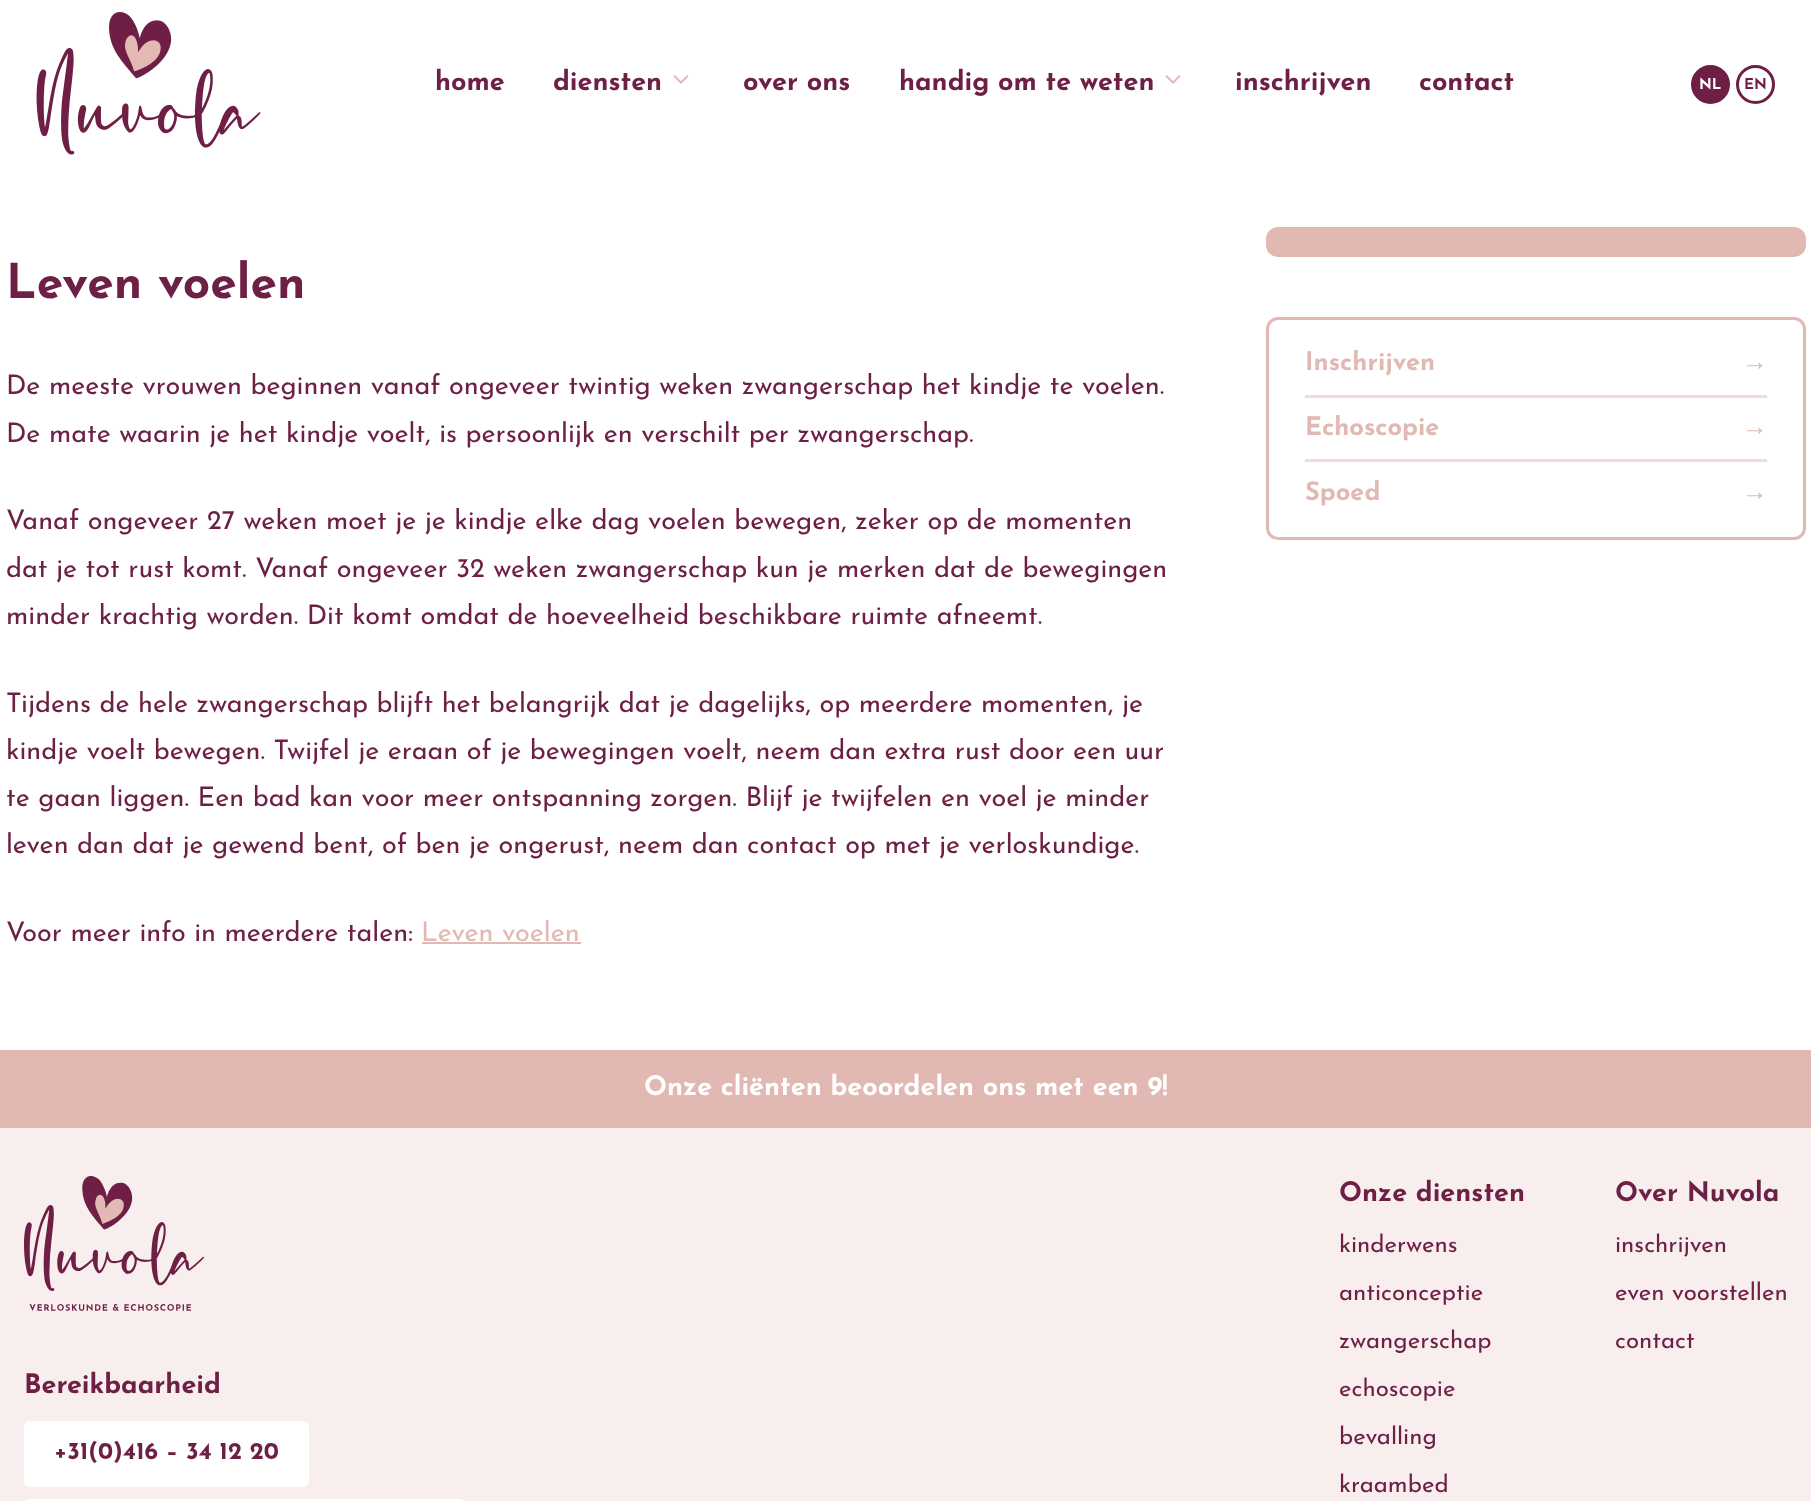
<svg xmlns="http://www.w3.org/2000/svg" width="1811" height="1501">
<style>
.a{font:bold 27px Josefin Sans;fill:#6e1f45}
.b{font:bold 15px Josefin Sans;fill:#fff}
.c{font:bold 15px Josefin Sans;fill:#6e1f45}
.d{font:bold 48px Josefin Sans;fill:#6e1f45}
.e{font:27px Josefin Sans;fill:#6e1f45}
.f{font:27px Josefin Sans;fill:#e2b8b3}
.g{font:bold 25.5px Josefin Sans;fill:#e2b8b3}
.h{font:bold 25.5px Liberation Sans;fill:#e2b8b3}
.i{font:bold 27px Josefin Sans;fill:#fff}
.j{font:24px Josefin Sans;fill:#6e1f45}
.k{font:bold 24px Josefin Sans;fill:#6e1f45}
</style>
<rect width="100%" height="100%" fill="#fff"/>
<image href="1.png" x="36" y="12" width="225" height="143"/>
<image href="2.png" x="673" y="75" width="16" height="9"/>
<image href="2.png" x="1165" y="75" width="16" height="9"/>
<circle fill="#6e1f45" stroke="#6e1f45" stroke-width="3" cx="1710.5" cy="84.5" r="18"/>
<circle fill="none" stroke="#6e1f45" stroke-width="3" cx="1755.5" cy="84.5" r="18"/>
<path fill="#e2b8b3" d="M422 942h159v2H422z"/>
<rect fill="#e2b8b3" stroke="#e2b8b3" stroke-width="3" x="1267.5" y="228.5" width="537" height="27" rx="10.5"/>
<rect fill="none" stroke="#e2b8b3" stroke-width="3" x="1267.5" y="318.5" width="537" height="220" rx="10.5"/>
<path fill="#f1dcd9" d="M1305 395h462v3H1305z"/>
<path fill="#f1dcd9" d="M1305 459h462v3H1305z"/>
<path fill="#e2b8b3" d="M0 1050h1811v78H0z"/>
<path fill="#f8eeed" d="M0 1128h1811v373H0z"/>
<image href="3.png" x="24" y="1176" width="180" height="135"/>
<rect fill="#fff" x="24" y="1421" width="285" height="66" rx="6"/>
<rect fill="#fff" x="24" y="1499" width="441" height="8" rx="6"/>
<text class="a" x="435" y="90">home</text>
<text class="a" x="553" y="90">diensten</text>
<text class="a" x="743" y="90">over ons</text>
<text class="a" x="899" y="90">handig om te weten</text>
<text class="a" x="1235" y="90">inschrijven</text>
<text class="a" x="1419" y="90">contact</text>
<text class="b" x="1699" y="89">NL</text>
<text class="c" x="1744" y="89">EN</text>
<text class="d" x="6" y="298">Leven voelen</text>
<text class="e" x="6" y="394">De meeste vrouwen beginnen vanaf ongeveer twintig weken zwangerschap het kindje te voelen.</text>
<text class="e" x="6" y="442">De mate waarin je het kindje voelt, is persoonlijk en verschilt per zwangerschap.</text>
<text class="e" x="6" y="529">Vanaf ongeveer 27 weken moet je je kindje elke dag voelen bewegen, zeker op de momenten</text>
<text class="e" x="6" y="577">dat je tot rust komt. Vanaf ongeveer 32 weken zwangerschap kun je merken dat de bewegingen</text>
<text class="e" x="6" y="624">minder krachtig worden. Dit komt omdat de hoeveelheid beschikbare ruimte afneemt.</text>
<text class="e" x="6" y="712">Tijdens de hele zwangerschap blijft het belangrijk dat je dagelijks, op meerdere momenten, je</text>
<text class="e" x="6" y="759">kindje voelt bewegen. Twijfel je eraan of je bewegingen voelt, neem dan extra rust door een uur</text>
<text class="e" x="6" y="806">te gaan liggen. Een bad kan voor meer ontspanning zorgen. Blijf je twijfelen en voel je minder</text>
<text class="e" x="6" y="853">leven dan dat je gewend bent, of ben je ongerust, neem dan contact op met je verloskundige.</text>
<text class="e" x="6" y="941">Voor meer info in meerdere talen:</text>
<text class="f" x="421" y="941">Leven voelen</text>
<text class="g" x="1305" y="370">Inschrijven</text>
<text class="h" x="1742" y="370">→</text>
<text class="g" x="1305" y="435">Echoscopie</text>
<text class="h" x="1742" y="435">→</text>
<text class="g" x="1305" y="500">Spoed</text>
<text class="h" x="1742" y="500">→</text>
<text class="i" x="644" y="1095">Onze cliënten beoordelen ons met een 9!</text>
<text class="a" x="1339" y="1201">Onze diensten</text>
<text class="j" x="1339" y="1252">kinderwens</text>
<text class="j" x="1339" y="1300">anticonceptie</text>
<text class="j" x="1339" y="1348">zwangerschap</text>
<text class="j" x="1339" y="1396">echoscopie</text>
<text class="j" x="1339" y="1444">bevalling</text>
<text class="j" x="1339" y="1492">kraambed</text>
<text class="a" x="1615" y="1201">Over Nuvola</text>
<text class="j" x="1615" y="1252">inschrijven</text>
<text class="j" x="1615" y="1300">even voorstellen</text>
<text class="j" x="1615" y="1348">contact</text>
<text class="a" x="24" y="1393">Bereikbaarheid</text>
<text class="k" x="54" y="1459">+31(0)416 – 34 12 20</text>
</svg>
